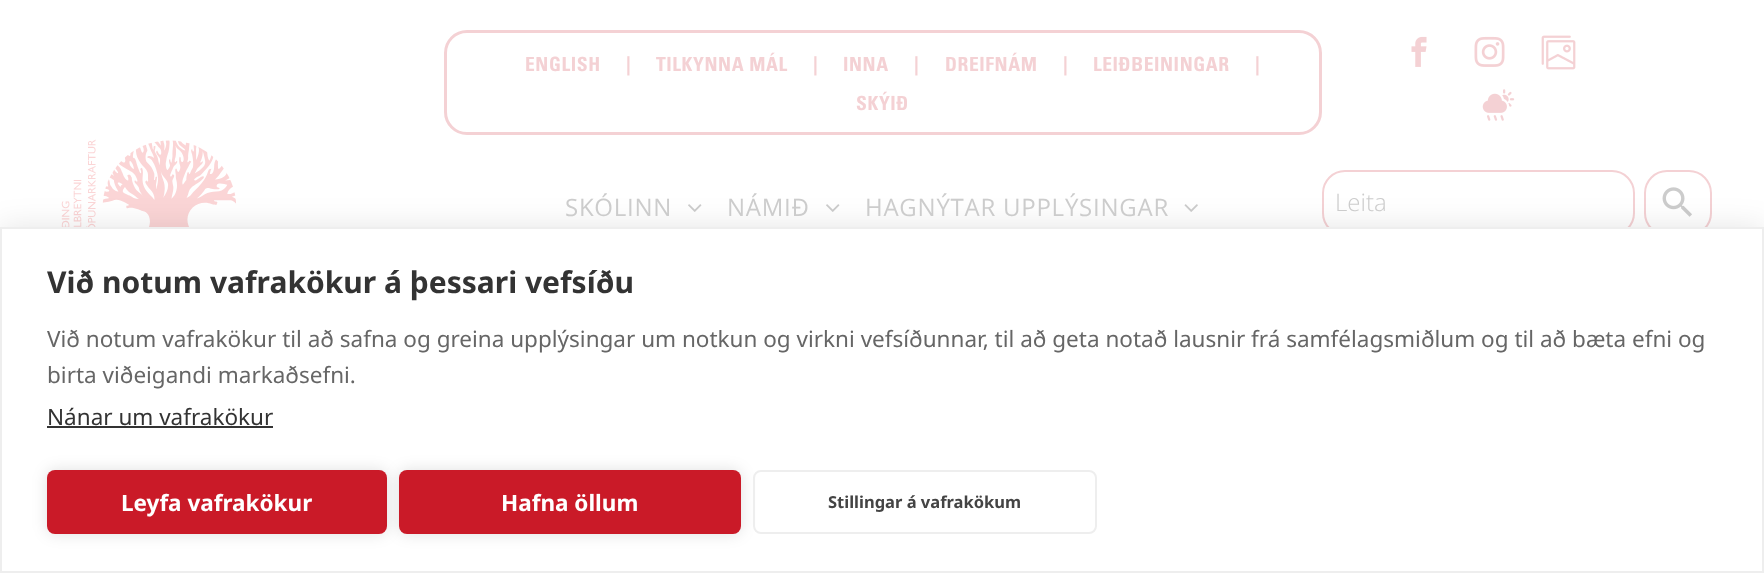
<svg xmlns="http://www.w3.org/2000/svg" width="1764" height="573">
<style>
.a{font:bold 19.5px Univers;letter-spacing:0.6px;fill:#f4d1d4}
.b{font:bold 19.5px Open Sans;fill:#f4d1d4}
.c{font:24px Open Sans;letter-spacing:0.75px;fill:#ccc}
.d{font:300 24px Open Sans;fill:#ccc}
.e{font:bold 30px Noto Sans;fill:#333}
.f{font:22.5px Noto Sans;fill:#666}
.g{font:22.5px Noto Sans;fill:#333}
.h{font:bold 22.5px Noto Sans;fill:#fff}
.i{font:bold 16.5px Noto Sans;fill:#444}
</style>
<rect width="100%" height="100%" fill="#fff"/>
<rect fill="none" stroke="#f4d1d4" stroke-width="3" x="445.5" y="31.5" width="875" height="102" rx="21.5"/>
<image href="1.png" x="1411" y="36" width="16" height="31"/>
<image href="2.png" x="1474" y="36" width="31" height="31"/>
<image href="3.png" x="1541" y="35" width="35" height="35"/>
<image href="4.png" x="1482" y="89" width="33" height="32"/>
<image href="5.png" x="61" y="139" width="176" height="88"/>
<image href="6.png" x="688" y="204" width="14" height="8"/>
<image href="6.png" x="826" y="204" width="14" height="8"/>
<image href="7.png" x="1184" y="204" width="14" height="8"/>
<rect fill="none" stroke="#f4d1d4" stroke-width="2" x="1323" y="171" width="311" height="64" rx="22"/>
<rect fill="none" stroke="#f4d1d4" stroke-width="2" x="1645" y="171" width="66" height="64" rx="22"/>
<image href="8.png" x="1662" y="187" width="30" height="30"/>
<path fill="#0000001a" filter="blur(15px)" d="M0 227h1764v346H0z"/>
<path fill="#fff" stroke="#eee" stroke-width="2" d="M1 228h1762v344H1z"/>
<path fill="#333" d="M47 426h226v2H47z"/>
<rect fill="#0000001f" filter="blur(7.5px)" x="47" y="470" width="340" height="64" rx="8"/>
<rect fill="#ca1a28" x="47" y="470" width="340" height="64" rx="8"/>
<rect fill="#0000001f" filter="blur(7.5px)" x="399" y="470" width="342" height="64" rx="8"/>
<rect fill="#ca1a28" x="399" y="470" width="342" height="64" rx="8"/>
<rect fill="none" stroke="#eee" stroke-width="2" x="754" y="471" width="342" height="62" rx="7"/>
<text class="a" x="525" y="71">ENGLISH</text>
<text class="b" x="623" y="71">|</text>
<text class="a" x="656" y="71">TILKYNNA MÁL</text>
<text class="b" x="810" y="71">|</text>
<text class="a" x="843" y="71">INNA</text>
<text class="b" x="911" y="71">|</text>
<text class="a" x="945" y="71">DREIFNÁM</text>
<text class="b" x="1060" y="71">|</text>
<text class="a" x="1093" y="71">LEIÐBEININGAR</text>
<text class="b" x="1252" y="71">|</text>
<text class="a" x="856" y="110">SKÝIÐ</text>
<text class="c" x="565" y="216">SKÓLINN</text>
<text class="c" x="727" y="216">NÁMIÐ</text>
<text class="c" x="865" y="216">HAGNÝTAR UPPLÝSINGAR</text>
<text class="d" x="1335" y="211">Leita</text>
<text class="e" x="47" y="293">Við notum vafrakökur á þessari vefsíðu</text>
<text class="f" x="47" y="347">Við notum vafrakökur til að safna og greina upplýsingar um notkun og virkni vefsíðunnar, til að geta notað lausnir frá samfélagsmiðlum og til að bæta efni og</text>
<text class="f" x="47" y="383">birta viðeigandi markaðsefni.</text>
<text class="g" x="47" y="425">Nánar um vafrakökur</text>
<text class="h" x="121" y="511">Leyfa vafrakökur</text>
<text class="h" x="501" y="511">Hafna öllum</text>
<text class="i" x="828" y="508">Stillingar á vafrakökum</text>
</svg>
